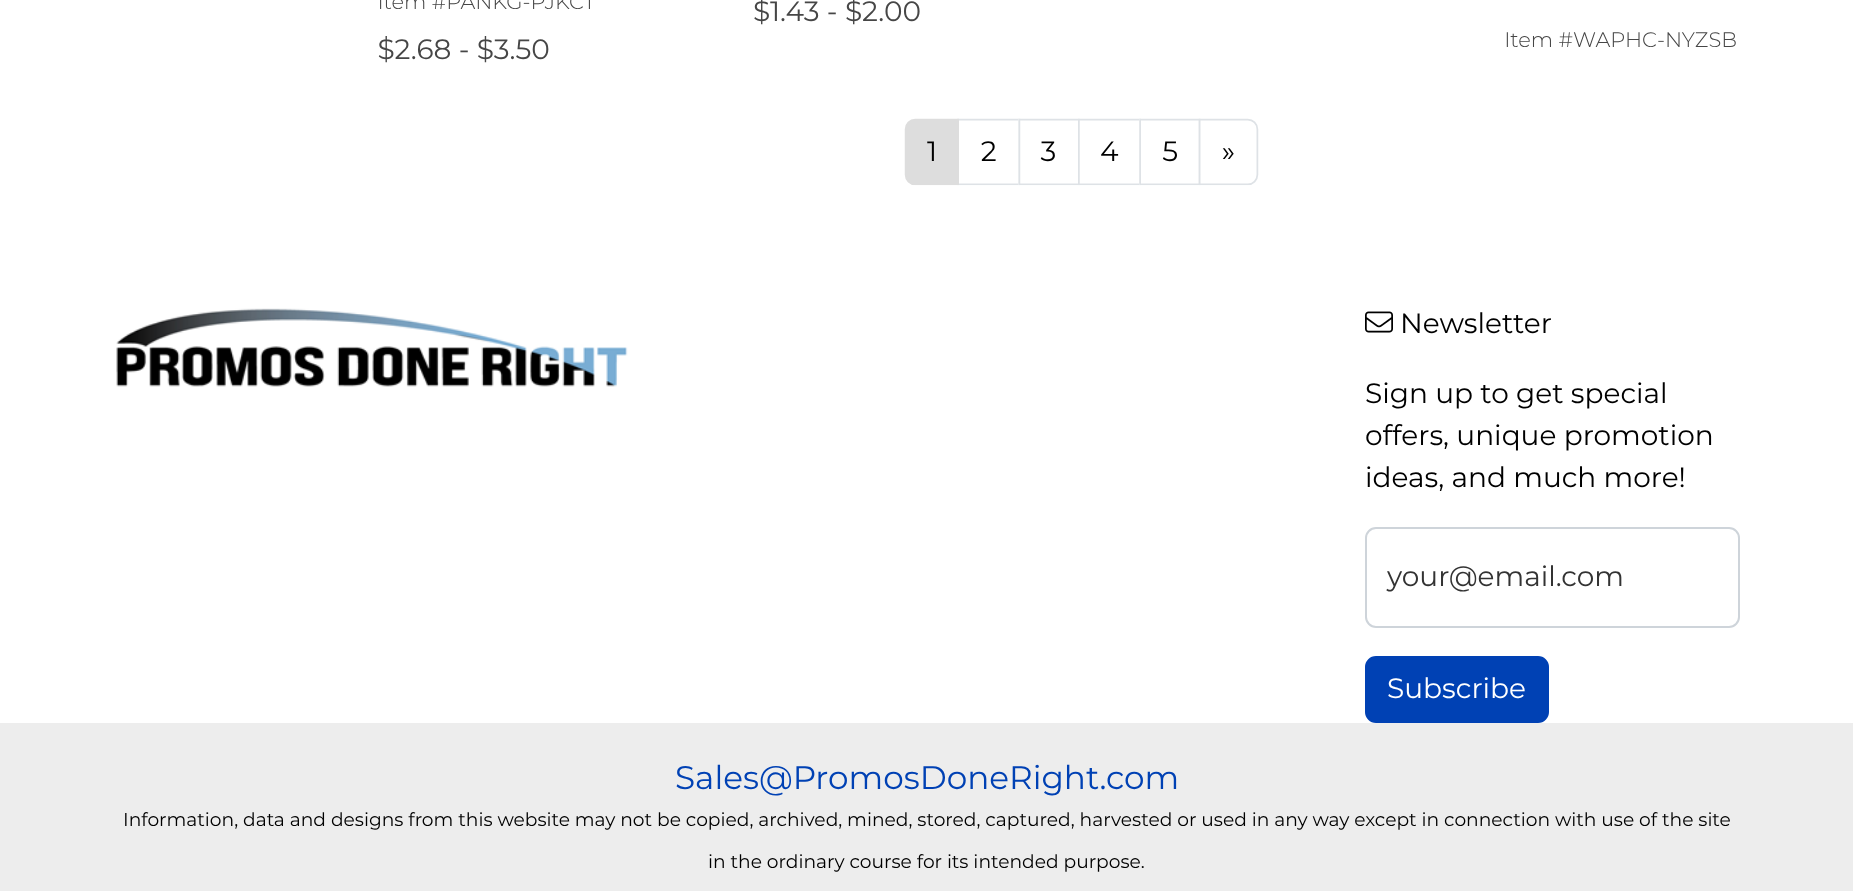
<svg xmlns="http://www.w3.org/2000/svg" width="1853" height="891">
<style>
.a{font:28px Montserrat;fill:#000}
.b{font:28px Montserrat;fill:#333}
.c{font:28px Montserrat;fill:#fff}
.d{font:32.7px Montserrat;fill:#0041b4}
.e{font:18.67px Montserrat;fill:#000}
</style>
<rect width="100%" height="100%" fill="#fff"/>
<image href="1.png" x="378" y="0" width="1358" height="186"/>
<image href="2.png" x="116" y="308" width="512" height="79"/>
<image href="3.png" x="1365" y="311" width="28" height="22"/>
<rect fill="none" stroke="#ced4da" stroke-width="2" x="1366" y="528" width="373" height="99" rx="10"/>
<rect fill="#0041b4" stroke="#0041b4" stroke-width="2" x="1366" y="657" width="182" height="65" rx="10"/>
<path fill="#ededed" d="M0 723h1853v168H0z"/>
<text class="a" x="1400" y="333">Newsletter</text>
<text class="a" x="1365" y="403">Sign up to get special</text>
<text class="a" x="1365" y="445">offers, unique promotion</text>
<text class="a" x="1365" y="487">ideas, and much more!</text>
<text class="b" x="1387" y="586">your@email.com</text>
<text class="c" x="1387" y="698">Subscribe</text>
<text class="d" x="675" y="789">Sales@PromosDoneRight.com</text>
<text class="e" x="123" y="826">Information, data and designs from this website may not be copied, archived, mined, stored, captured, harvested or used in any way except in connection with use of the site</text>
<text class="e" x="708" y="868">in the ordinary course for its intended purpose.</text>
</svg>
